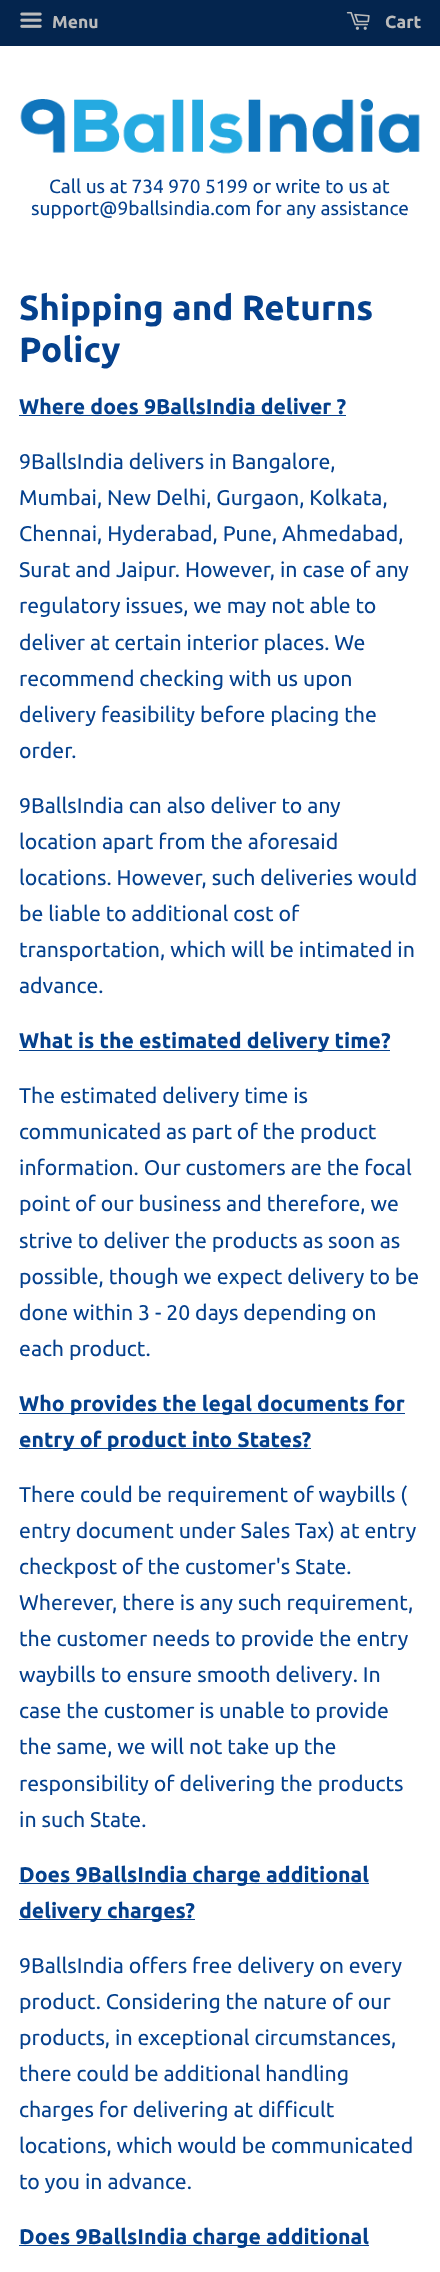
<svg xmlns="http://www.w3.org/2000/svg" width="440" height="2272">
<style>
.a{font:bold 17.5px Ubuntu;fill:#bbb}
.b{font:19.1px Ubuntu;fill:#05418d}
.c{font:bold 35px Ubuntu;fill:#05418d}
.d{font:bold 21.25px Ubuntu;fill:#05418d}
.e{font:21.25px Ubuntu;fill:#05418d}
</style>
<rect width="100%" height="100%" fill="#fff"/>
<path fill="#04254e" d="M0 0h440v46H0z"/>
<image href="1.png" x="20" y="12" width="22" height="16"/>
<image href="2.png" x="346" y="11" width="24" height="19"/>
<image href="3.png" x="20" y="99" width="400" height="55"/>
<path fill="#05418d" d="M19 415h327v1H19z"/>
<path fill="#05418d" d="M19 1050h371v1H19z"/>
<path fill="#05418d" d="M19 1413h386v1H19z"/>
<path fill="#05418d" d="M19 1448h292v1H19z"/>
<path fill="#05418d" d="M19 1883h350v1H19z"/>
<path fill="#05418d" d="M19 1919h176v1H19z"/>
<path fill="#05418d" d="M19 2245h350v1H19z"/>
<text class="a" x="52" y="28">Menu</text>
<text class="a" x="385" y="28">Cart</text>
<text class="b" x="49" y="193">Call us at 734 970 5199 or write to us at</text>
<text class="b" x="31" y="215">support@9ballsindia.com for any assistance</text>
<text class="c" x="19" y="320">Shipping and Returns</text>
<text class="c" x="19" y="362">Policy</text>
<text class="d" x="19" y="414">Where does 9BallsIndia deliver ?</text>
<text class="e" x="19" y="469">9BallsIndia delivers in Bangalore,</text>
<text class="e" x="19" y="505">Mumbai, New Delhi, Gurgaon, Kolkata,</text>
<text class="e" x="19" y="541">Chennai, Hyderabad, Pune, Ahmedabad,</text>
<text class="e" x="19" y="577">Surat and Jaipur. However, in case of any</text>
<text class="e" x="19" y="613">regulatory issues, we may not able to</text>
<text class="e" x="19" y="650">deliver at certain interior places. We</text>
<text class="e" x="19" y="686">recommend checking with us upon</text>
<text class="e" x="19" y="722">delivery feasibility before placing the</text>
<text class="e" x="19" y="758">order.</text>
<text class="e" x="19" y="813">9BallsIndia can also deliver to any</text>
<text class="e" x="19" y="849">location apart from the aforesaid</text>
<text class="e" x="19" y="885">locations. However, such deliveries would</text>
<text class="e" x="19" y="921">be liable to additional cost of</text>
<text class="e" x="19" y="957">transportation, which will be intimated in</text>
<text class="e" x="19" y="993">advance.</text>
<text class="d" x="19" y="1048">What is the estimated delivery time?</text>
<text class="e" x="19" y="1103">The estimated delivery time is</text>
<text class="e" x="19" y="1139">communicated as part of the product</text>
<text class="e" x="19" y="1175">information. Our customers are the focal</text>
<text class="e" x="19" y="1211">point of our business and therefore, we</text>
<text class="e" x="19" y="1248">strive to deliver the products as soon as</text>
<text class="e" x="19" y="1284">possible, though we expect delivery to be</text>
<text class="e" x="19" y="1320">done within 3 - 20 days depending on</text>
<text class="e" x="19" y="1356">each product.</text>
<text class="d" x="19" y="1411">Who provides the legal documents for</text>
<text class="d" x="19" y="1447">entry of product into States?</text>
<text class="e" x="19" y="1502">There could be requirement of waybills (</text>
<text class="e" x="19" y="1538">entry document under Sales Tax) at entry</text>
<text class="e" x="19" y="1574">checkpost of the customer's State.</text>
<text class="e" x="19" y="1610">Wherever, there is any such requirement,</text>
<text class="e" x="19" y="1646">the customer needs to provide the entry</text>
<text class="e" x="19" y="1682">waybills to ensure smooth delivery. In</text>
<text class="e" x="19" y="1718">case the customer is unable to provide</text>
<text class="e" x="19" y="1754">the same, we will not take up the</text>
<text class="e" x="19" y="1791">responsibility of delivering the products</text>
<text class="e" x="19" y="1827">in such State.</text>
<text class="d" x="19" y="1882">Does 9BallsIndia charge additional</text>
<text class="d" x="19" y="1918">delivery charges?</text>
<text class="e" x="19" y="1973">9BallsIndia offers free delivery on every</text>
<text class="e" x="19" y="2009">product. Considering the nature of our</text>
<text class="e" x="19" y="2045">products, in exceptional circumstances,</text>
<text class="e" x="19" y="2081">there could be additional handling</text>
<text class="e" x="19" y="2117">charges for delivering at difficult</text>
<text class="e" x="19" y="2153">locations, which would be communicated</text>
<text class="e" x="19" y="2189">to you in advance.</text>
<text class="d" x="19" y="2244">Does 9BallsIndia charge additional</text>
</svg>
